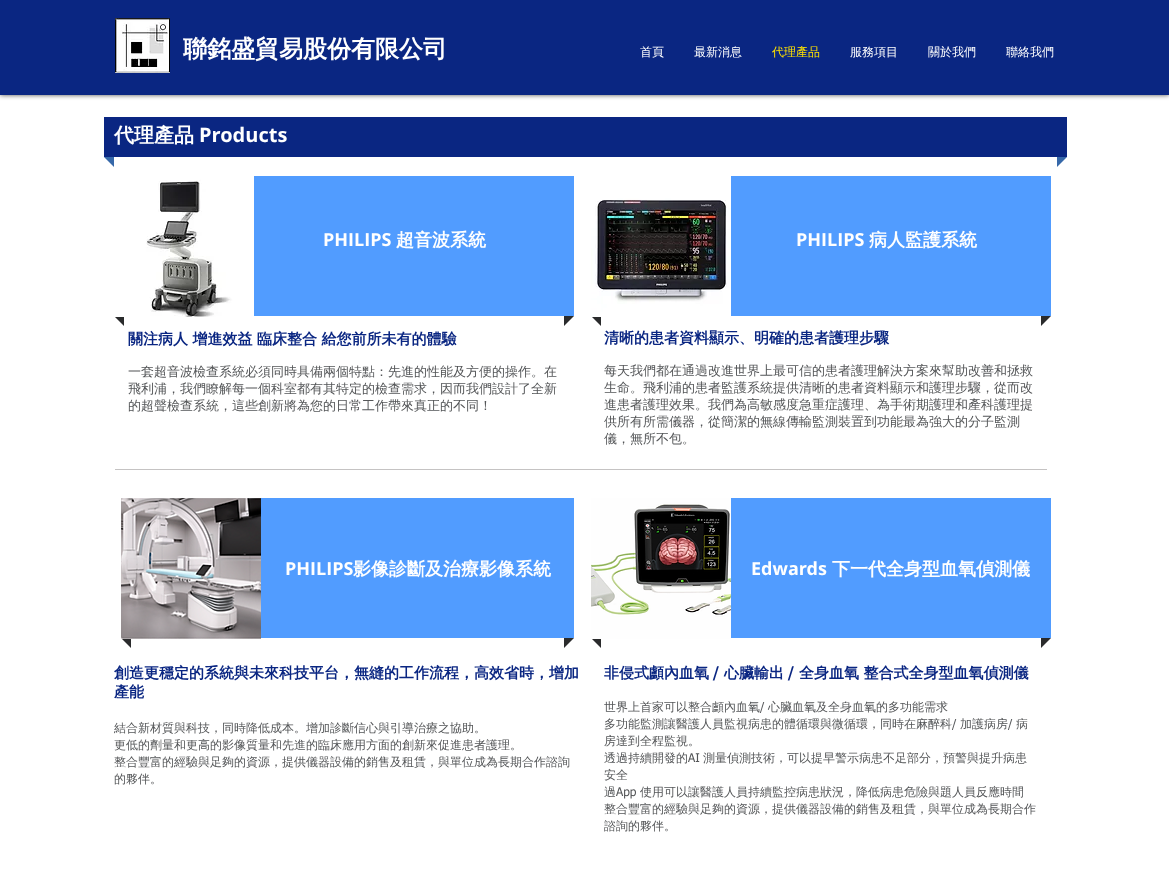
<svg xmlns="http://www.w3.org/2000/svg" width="1169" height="874">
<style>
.a{font:bold 24px WenQuanYi Zen Hei;fill:#fff}
.b{font:500 12px WenQuanYi Zen Hei;fill:#fff}
.c{font:500 12px WenQuanYi Zen Hei;fill:#ffe200}
.d{font:bold 20px WenQuanYi Zen Hei;fill:#fff}
.e{font:bold 20px Open Sans;fill:#fff}
.f{font:bold 18px Open Sans;fill:#fff}
.g{font:bold 18px WenQuanYi Zen Hei;fill:#fff}
.h{font:bold 15px WenQuanYi Zen Hei;fill:#0a2682}
.i{font:500 13px WenQuanYi Zen Hei;fill:#545658}
.j{font:500 12px WenQuanYi Zen Hei;fill:#545658}
.k{font:bold 15px tahoma;fill:#0a2682}
.l{font:12px tahoma;fill:#545658}
</style>
<rect width="100%" height="100%" fill="#fff"/>
<path fill="#000000b3" filter="blur(2.5px)" d="M0 0h1169v95H0z"/>
<path fill="#0a2682" d="M0 0h1169v95H0z"/>
<image href="1.png" x="115" y="18" width="55" height="55"/>
<path fill="#0a2682" d="M104 117h963v40H104z"/>
<path fill="#3668a9" d="M104 157h10v10z"/>
<path fill="#3668a9" d="M1057 157h10l-10 10z"/>
<path fill="#519cff" d="M254 176h320v140H254z"/>
<path fill="#2a2b2c" d="M114 316h10v10z"/>
<image href="2.png" x="114" y="176" width="140" height="141"/>
<path fill="#2a2b2c" d="M564 316h10l-10 10z"/>
<path fill="#519cff" d="M731 176h320v140H731z"/>
<path fill="#2a2b2c" d="M591 316h10v10z"/>
<image href="3.png" x="591" y="176" width="140" height="141"/>
<path fill="#2a2b2c" d="M1041 316h10l-10 10z"/>
<path fill="#c5c3c3" d="M115 469h932v1H115z"/>
<path fill="#519cff" d="M261 498h313v140H261z"/>
<path fill="#2a2b2c" d="M121 638h10v10z"/>
<image href="4.png" x="121" y="498" width="140" height="141"/>
<path fill="#2a2b2c" d="M564 638h10l-10 10z"/>
<path fill="#519cff" d="M731 498h320v140H731z"/>
<path fill="#2a2b2c" d="M591 638h10v10z"/>
<image href="5.png" x="591" y="498" width="140" height="141"/>
<path fill="#2a2b2c" d="M1041 638h10l-10 10z"/>
<text class="a" x="183" y="57">聯銘盛貿易股份有限公司</text>
<text class="b" x="640" y="56">首頁</text>
<text class="b" x="694" y="56">最新消息</text>
<text class="c" x="772" y="56">代理產品</text>
<text class="b" x="850" y="56">服務項目</text>
<text class="b" x="928" y="56">關於我們</text>
<text class="b" x="1006" y="56">聯絡我們</text>
<text class="d" x="114" y="142">代理產品</text>
<text class="e" x="199" y="142">Products</text>
<text class="f" x="323" y="246">PHILIPS</text>
<text class="g" x="396" y="246">超音波系統</text>
<text class="f" x="796" y="246">PHILIPS</text>
<text class="g" x="869" y="246">病人監護系統</text>
<text class="h" x="128" y="344">關注病人 增進效益 臨床整合 給您前所未有的體驗</text>
<text class="i" x="128" y="376">一套超音波檢查系統必須同時具備兩個特點：先進的性能及方便的操作。在</text>
<text class="i" x="128" y="393">飛利浦，我們瞭解每一個科室都有其特定的檢查需求，因而我們設計了全新</text>
<text class="i" x="128" y="410">的超聲檢查系統，這些創新將為您的日常工作帶來真正的不同！</text>
<text class="h" x="604" y="343">清晰的患者資料顯示、明確的患者護理步驟</text>
<text class="i" x="604" y="375">每天我們都在通過改進世界上最可信的患者護理解決方案來幫助改善和拯救</text>
<text class="i" x="604" y="392">生命。飛利浦的患者監護系統提供清晰的患者資料顯示和護理步驟，從而改</text>
<text class="i" x="604" y="409">進患者護理效果。我們為高敏感度急重症護理、為手術期護理和產科護理提</text>
<text class="i" x="604" y="426">供所有所需儀器，從簡潔的無線傳輸監測裝置到功能最為強大的分子監測</text>
<text class="i" x="604" y="443">儀，無所不包。</text>
<text class="f" x="285" y="575">PHILIPS</text>
<text class="g" x="353" y="575">影像診斷及治療影像系統</text>
<text class="f" x="751" y="575">Edwards</text>
<text class="g" x="832" y="575">下一代全身型血氧偵測儀</text>
<text class="h" x="114" y="678">創造更穩定的系統與未來科技平台，無縫的工作流程，高效省時，增加</text>
<text class="h" x="114" y="697">產能</text>
<text class="j" x="114" y="732">結合新材質與科技，同時降低成本。增加診斷信心與引導治療之協助。</text>
<text class="j" x="114" y="749">更低的劑量和更高的影像質量和先進的臨床應用方面的創新來促進患者護理。</text>
<text class="j" x="114" y="766">整合豐富的經驗與足夠的資源，提供儀器設備的銷售及租賃，與單位成為長期合作諮詢</text>
<text class="j" x="114" y="783">的夥伴。</text>
<text class="h" x="604" y="678">非侵式顱內血氧</text>
<text class="k" x="713" y="678">/</text>
<text class="h" x="724" y="678">心臟輸出</text>
<text class="k" x="788" y="678">/</text>
<text class="h" x="799" y="678">全身血氧 整合式全身型血氧偵測儀</text>
<text class="j" x="604" y="711">世界上首家可以整合顱內血氧</text>
<text class="l" x="760" y="711">/</text>
<text class="j" x="768" y="711">心臟血氧及全身血氧的多功能需求</text>
<text class="j" x="604" y="728">多功能監測讓醫護人員監視病患的體循環與微循環，同時在麻醉科</text>
<text class="l" x="952" y="728">/</text>
<text class="j" x="960" y="728">加護病房</text>
<text class="l" x="1008" y="728">/</text>
<text class="j" x="1016" y="728">病</text>
<text class="j" x="604" y="745">房達到全程監視。</text>
<text class="j" x="604" y="762">透過持續開發的</text>
<text class="l" x="688" y="762">AI</text>
<text class="j" x="703" y="762">測量偵測技術，可以提早警示病患不足部分，預警與提升病患</text>
<text class="j" x="604" y="779">安全</text>
<text class="j" x="604" y="796">過</text>
<text class="l" x="616" y="796">App</text>
<text class="j" x="640" y="796">使用可以讓醫護人員持續監控病患狀況，降低病患危險與題人員反應時間</text>
<text class="j" x="604" y="813">整合豐富的經驗與足夠的資源，提供儀器設備的銷售及租賃，與單位成為長期合作</text>
<text class="j" x="604" y="830">諮詢的夥伴。</text>
</svg>
